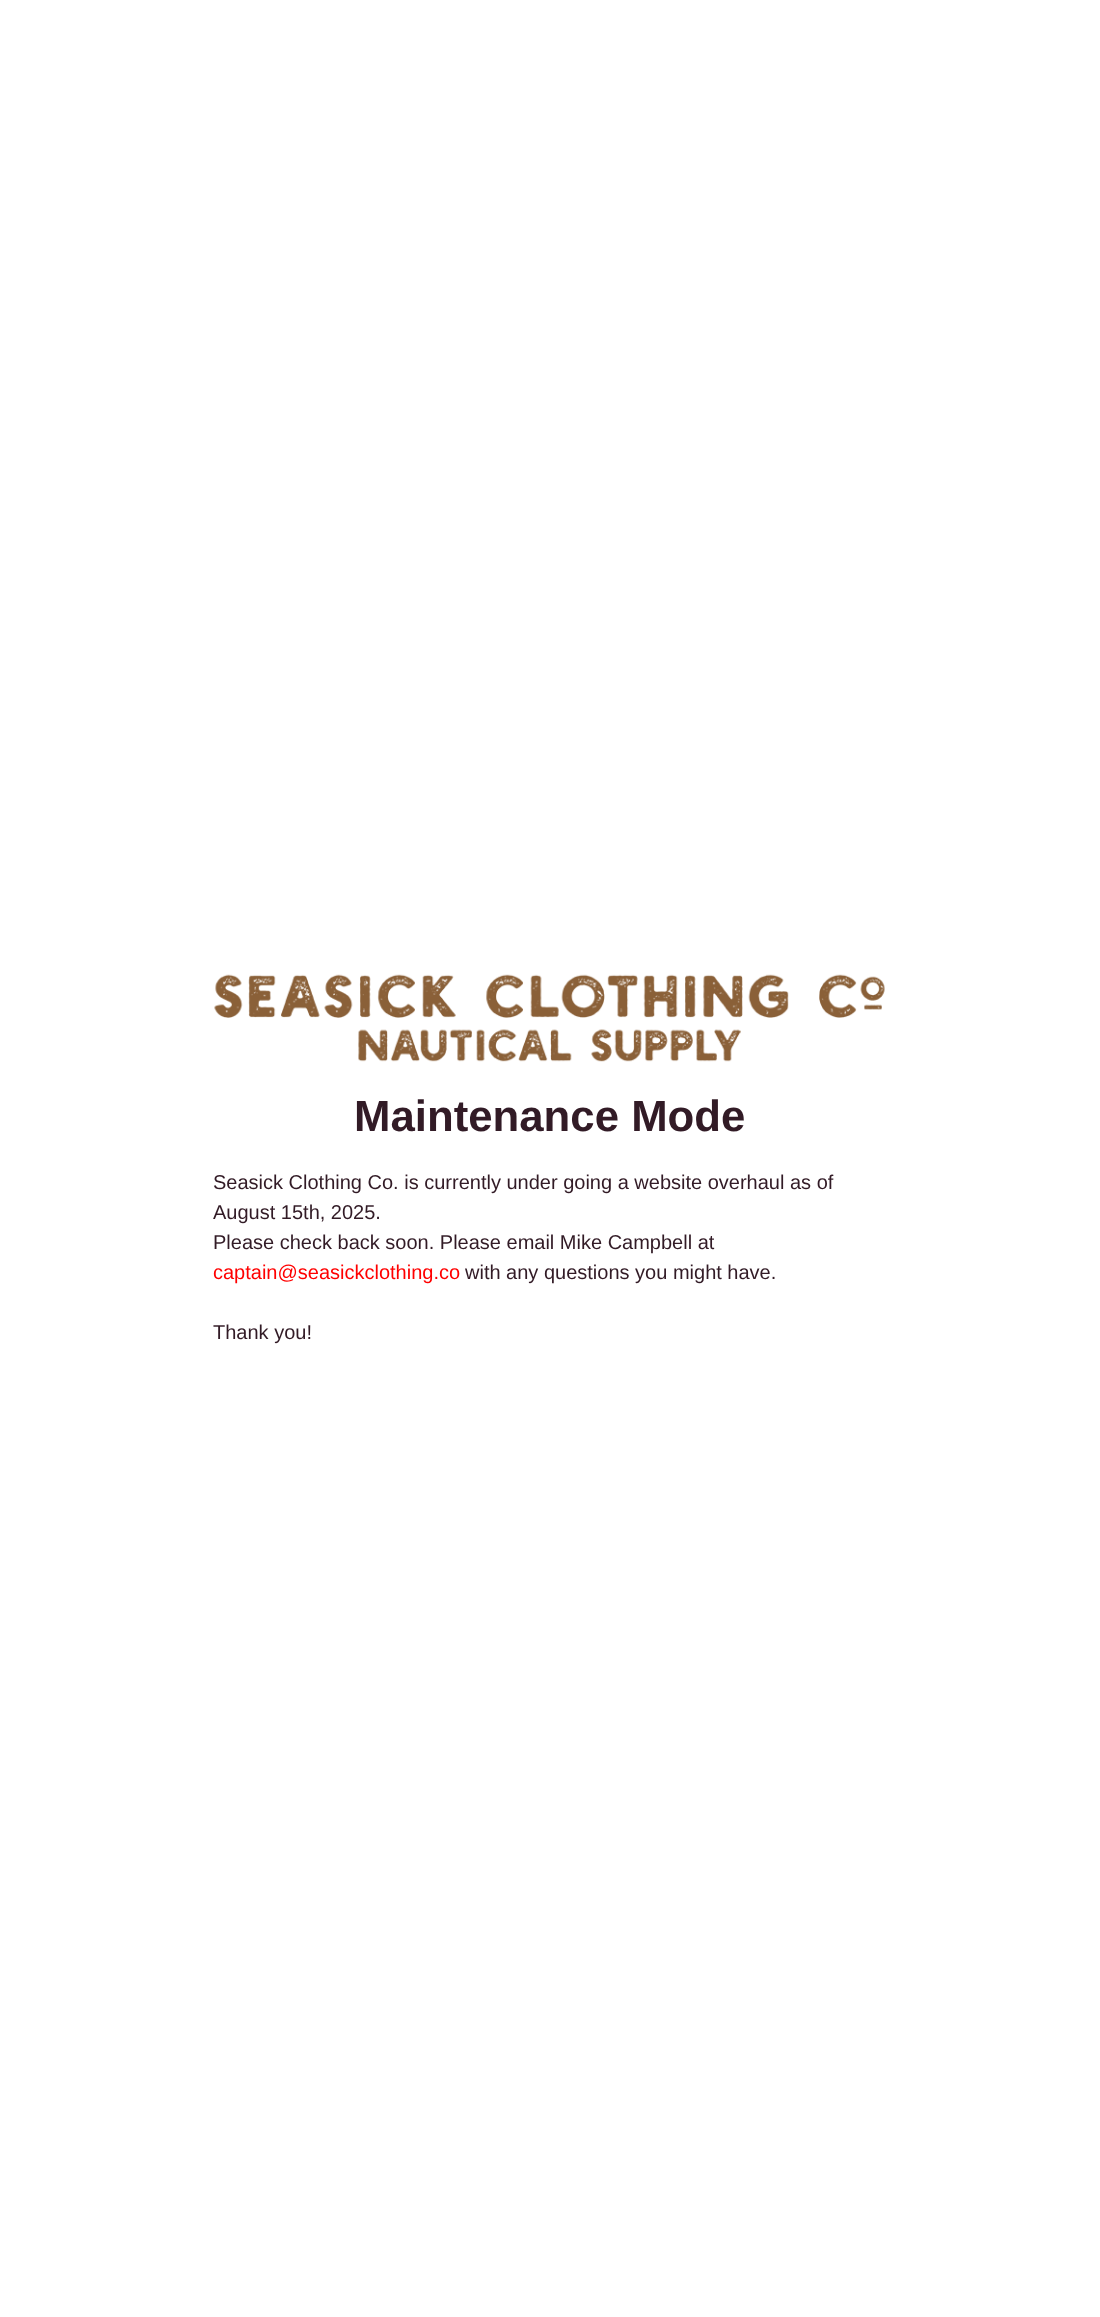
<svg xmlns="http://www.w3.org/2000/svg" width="1100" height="2317">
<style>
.a{font:bold 43.75px Liberation Sans;fill:#321b26}
.b{font:20px Liberation Sans;fill:#321b26}
.c{font:20px Liberation Sans;fill:#f00}
</style>
<rect width="100%" height="100%" fill="#fff"/>
<image href="1.png" x="214" y="974" width="671" height="88"/>
<text class="a" x="354" y="1131">Maintenance Mode</text>
<text class="b" x="213" y="1189">Seasick Clothing Co. is currently under going a website overhaul as of</text>
<text class="b" x="213" y="1219">August 15th, 2025.</text>
<text class="b" x="213" y="1249">Please check back soon. Please email Mike Campbell at</text>
<text class="c" x="213" y="1279">captain@seasickclothing.co</text>
<text class="b" x="465" y="1279">with any questions you might have.</text>
<text class="b" x="213" y="1339">Thank you!</text>
</svg>
